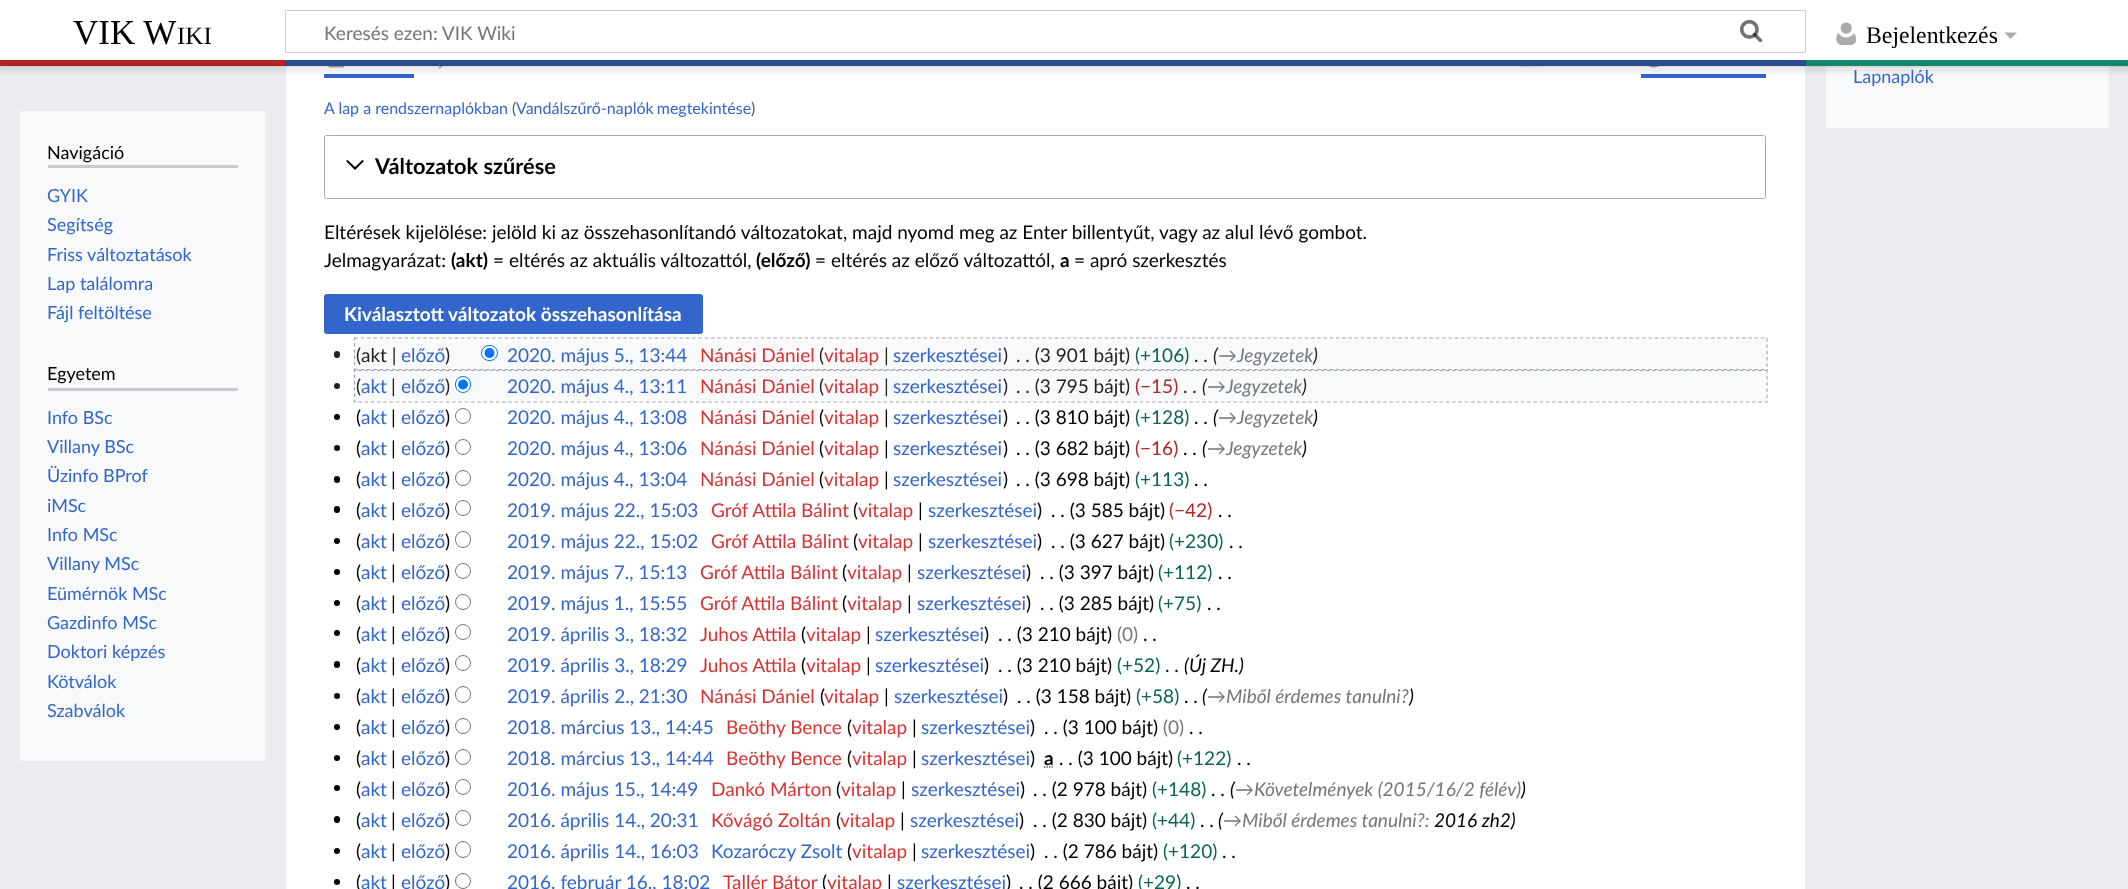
<svg xmlns="http://www.w3.org/2000/svg" width="2128" height="889">
<style>
.a{font:35px Liberation Serif;fill:#000}
.b{font:25px Liberation Serif;fill:#000}
.c{font:19px Lato;fill:#767676}
.d{font:23.75px Liberation Serif;fill:#000}
.e{font:18px Lato;fill:#36c}
.f{font:18px Lato;fill:#000}
.g{font:16px Lato;fill:#36c}
.h{font:16px Lato;fill:#54595d}
.i{font:bold 21.75px Lato;fill:#000}
.j{font:19px Lato;fill:#000}
.k{font:bold 19px Lato;fill:#000}
.l{font:bold 19px Lato;fill:#fff}
.m{font:19px Lato;fill:#222}
.n{font:19px Lato;fill:#36c}
.o{font:19px Lato;fill:#d73333}
.p{font:19px Lato;fill:#096450}
.q{font:italic 19px Lato;fill:#222}
.r{font:italic 19px Lato;fill:#72777d}
.s{font:19px Lato;fill:#b32424}
.t{font:italic 19px Lato;fill:#000}
</style>
<rect width="100%" height="100%" fill="#eaecf0"/>
<path fill="#f8f9fa" d="M1826 66h283v62H1826z"/>
<path fill="#fff" d="M286 66h1519v823H286z"/>
<image href="4.png" x="328" y="66" width="16" height="2"/>
<image href="5.png" x="438" y="66" width="4" height="3"/>
<image href="6.png" x="1520" y="66" width="18" height="1"/>
<image href="7.png" x="1649" y="66" width="10" height="2"/>
<path fill="#00000033" filter="blur(1px)" d="M0 60h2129v6H0z"/>
<path fill="#36c" d="M324 74h90v4H324z"/>
<path fill="#36c" d="M1641 74h125v4H1641z"/>
<path fill="#00000012" filter="blur(2px)" d="M-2 61h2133v12H-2z"/>
<path fill="#fff" d="M0 0h2128v60H0z"/>
<path fill="none" stroke="#c8ccd1" d="M285.5 10.5h1520v42H285.5z"/>
<image href="1.png" x="1740" y="20" width="23" height="23"/>
<image href="2.png" x="1740" y="20" width="23" height="23"/>
<image href="3.png" x="1836" y="22" width="21" height="23"/>
<path fill="#ababab" d="M2017 32.5l-6.5 6.5l-6-6.5z"/>
<path fill="#b32424" d="M0 60h285v6H0z"/>
<path fill="#2a4b8d" d="M285 60h1521v6H285z"/>
<path fill="#14866d" d="M1806 60h322v6H1806z"/>
<path fill="#f8f9fa" d="M20 111h245v650H20z"/>
<path fill="#c8ccd1" d="M48 165h190v3H48z"/>
<path fill="#c8ccd1" d="M48 388h190v3H48z"/>
<rect fill="none" stroke="#a2a9b1" x="324.5" y="135.5" width="1441" height="63" rx="2"/>
<path fill="#000" d="M362.5 160l-7.5 7l-7.5-7l-1.5 1l9 9l9-9z"/>
<rect fill="#36c" stroke="#36c" x="324.5" y="294.5" width="378" height="39" rx="2"/>
<path fill="#f8f9fa" d="M355 339h1411v62H355z"/>
<rect fill="#222" x="334" y="351" width="6" height="7" rx="3"/>
<rect fill="#fff" stroke="#0075ff" x="481.5" y="345.5" width="16" height="15" rx="7.5"/>
<circle fill="#0075ff" cx="489.5" cy="353" r="5"/>
<circle fill="#222" cx="337" cy="386" r="3"/>
<rect fill="#fff" stroke="#0075ff" x="455.5" y="376.5" width="15" height="16" rx="7.5"/>
<circle fill="#0075ff" cx="463" cy="384.5" r="5"/>
<circle fill="#000" cx="337" cy="417" r="3"/>
<circle fill="none" stroke="#767676" cx="463" cy="416" r="7.5"/>
<circle fill="#000" cx="337" cy="448" r="3"/>
<circle fill="none" stroke="#767676" cx="463" cy="447" r="7.5"/>
<rect fill="#000" x="334" y="476" width="6" height="7" rx="3"/>
<circle fill="none" stroke="#767676" cx="463" cy="478" r="7.5"/>
<rect fill="#000" x="334" y="506" width="6" height="7" rx="3"/>
<circle fill="none" stroke="#767676" cx="463" cy="508" r="7.5"/>
<circle fill="#000" cx="337" cy="541" r="3"/>
<rect fill="none" stroke="#767676" x="455.5" y="531.5" width="15" height="16" rx="7.5"/>
<circle fill="#000" cx="337" cy="572" r="3"/>
<circle fill="none" stroke="#767676" cx="463" cy="571" r="7.5"/>
<circle fill="#000" cx="337" cy="603" r="3"/>
<circle fill="none" stroke="#767676" cx="463" cy="602" r="7.5"/>
<circle fill="#000" cx="337" cy="633" r="3"/>
<circle fill="none" stroke="#767676" cx="463" cy="632" r="7.5"/>
<rect fill="#000" x="334" y="661" width="6" height="7" rx="3"/>
<circle fill="none" stroke="#767676" cx="463" cy="663" r="7.5"/>
<circle fill="#000" cx="337" cy="696" r="3"/>
<rect fill="none" stroke="#767676" x="455.5" y="686.5" width="15" height="16" rx="7.5"/>
<circle fill="#000" cx="337" cy="727" r="3"/>
<circle fill="none" stroke="#767676" cx="463" cy="726" r="7.5"/>
<circle fill="#000" cx="337" cy="758" r="3"/>
<circle fill="none" stroke="#767676" cx="463" cy="757" r="7.5"/>
<path fill="none" stroke="#000" stroke-width="1.2" stroke-dasharray="1.25 1.25" d="M1044 767h9.5"/>
<circle fill="#000" cx="337" cy="788" r="3"/>
<circle fill="none" stroke="#767676" cx="463" cy="787" r="7.5"/>
<rect fill="#000" x="334" y="816" width="6" height="7" rx="3"/>
<circle fill="none" stroke="#767676" cx="463" cy="818" r="7.5"/>
<circle fill="#000" cx="337" cy="851" r="3"/>
<rect fill="none" stroke="#767676" x="455.5" y="841.5" width="15" height="16" rx="7.5"/>
<circle fill="#000" cx="337" cy="882" r="3"/>
<circle fill="none" stroke="#767676" cx="463" cy="881" r="7.5"/>
<text class="a" x="73" y="44">VIK W</text>
<text class="b" x="177" y="44">IKI</text>
<text class="c" x="324" y="40">Keresés ezen: VIK Wiki</text>
<text class="d" x="1866" y="43">Bejelentkezés</text>
<text class="e" x="1853" y="83">Lapnaplók</text>
<text class="f" x="47" y="159">Navigáció</text>
<text class="e" x="47" y="202">GYIK</text>
<text class="e" x="47" y="231">Segítség</text>
<text class="e" x="47" y="261">Friss változtatások</text>
<text class="e" x="47" y="290">Lap találomra</text>
<text class="e" x="47" y="319">Fájl feltöltése</text>
<text class="f" x="47" y="380">Egyetem</text>
<text class="e" x="47" y="424">Info BSc</text>
<text class="e" x="47" y="453">Villany BSc</text>
<text class="e" x="47" y="482">Üzinfo BProf</text>
<text class="e" x="47" y="512">iMSc</text>
<text class="e" x="47" y="541">Info MSc</text>
<text class="e" x="47" y="570">Villany MSc</text>
<text class="e" x="47" y="600">Eümérnök MSc</text>
<text class="e" x="47" y="629">Gazdinfo MSc</text>
<text class="e" x="47" y="658">Doktori képzés</text>
<text class="e" x="47" y="688">Kötválok</text>
<text class="e" x="47" y="717">Szabválok</text>
<text class="g" x="324" y="114">A lap a rendszernaplókban</text>
<text class="h" x="512" y="114">(</text>
<text class="g" x="516" y="114" word-spacing="-1">Vandálszűrő-naplók megtekintése</text>
<text class="h" x="751" y="114">)</text>
<text class="i" x="375" y="174">Változatok szűrése</text>
<text class="j" x="324" y="239">Eltérések kijelölése: jelöld ki az összehasonlítandó változatokat, majd nyomd meg az Enter billentyűt, vagy az alul lévő gombot.</text>
<text class="j" x="324" y="267">Jelmagyarázat:</text>
<text class="k" x="451" y="267">(akt)</text>
<text class="j" x="493" y="267">= eltérés az aktuális változattól,</text>
<text class="k" x="756" y="267">(előző)</text>
<text class="j" x="815" y="267">= eltérés az előző változattól,</text>
<text class="k" x="1060" y="267">a</text>
<text class="j" x="1074" y="267">= apró szerkesztés</text>
<text class="l" x="344" y="321">Kiválasztott változatok összehasonlítása</text>
<text class="m" x="356" y="362">(</text>
<text class="m" x="361" y="362">akt |</text>
<text class="n" x="401" y="362">előző</text>
<text class="m" x="445" y="362">)</text>
<text class="n" x="507" y="362">2020. május 5., 13:44</text>
<text class="o" x="700" y="362">Nánási Dániel</text>
<text class="m" x="819" y="362">(</text>
<text class="o" x="824" y="362">vitalap</text>
<text class="m" x="884" y="362">|</text>
<text class="n" x="893" y="362">szerkesztései</text>
<text class="m" x="1003" y="362">)</text>
<text class="m" x="1016" y="362">. . (3 901 bájt)</text>
<text class="p" x="1135" y="362">(+106)</text>
<text class="q" x="1213" y="362">(</text>
<text class="r" x="1218" y="362">→Jegyzetek</text>
<text class="q" x="1313" y="362">)</text>
<text class="m" x="1194" y="362">. .</text>
<path fill="none" stroke="#a2a9b1" stroke-width="1.2" stroke-dasharray="3.75 2.5" d="M354.5 338h1412.5v32.5h-1412.5z"/>
<text class="m" x="356" y="393">(</text>
<text class="n" x="361" y="393">akt</text>
<text class="m" x="391" y="393">|</text>
<text class="n" x="401" y="393">előző</text>
<text class="m" x="445" y="393">)</text>
<text class="n" x="507" y="393">2020. május 4., 13:11</text>
<text class="o" x="700" y="393">Nánási Dániel</text>
<text class="m" x="819" y="393">(</text>
<text class="o" x="824" y="393">vitalap</text>
<text class="m" x="884" y="393">|</text>
<text class="n" x="893" y="393">szerkesztései</text>
<text class="m" x="1003" y="393">)</text>
<text class="m" x="1016" y="393">. . (3 795 bájt)</text>
<text class="s" x="1135" y="393">(−15)</text>
<text class="q" x="1202" y="393">(</text>
<text class="r" x="1207" y="393">→Jegyzetek</text>
<text class="q" x="1302" y="393">)</text>
<text class="m" x="1183" y="393">. .</text>
<path fill="none" stroke="#a2a9b1" stroke-width="1.2" stroke-dasharray="3.75 2.5" d="M354.5 369.5h1412.5v32.5h-1412.5z"/>
<text class="j" x="356" y="424">(</text>
<text class="n" x="361" y="424">akt</text>
<text class="j" x="391" y="424">|</text>
<text class="n" x="401" y="424">előző</text>
<text class="j" x="445" y="424">)</text>
<text class="n" x="507" y="424">2020. május 4., 13:08</text>
<text class="o" x="700" y="424">Nánási Dániel</text>
<text class="j" x="819" y="424">(</text>
<text class="o" x="824" y="424">vitalap</text>
<text class="j" x="884" y="424">|</text>
<text class="n" x="893" y="424">szerkesztései</text>
<text class="j" x="1003" y="424">)</text>
<text class="j" x="1016" y="424">. . (3 810 bájt)</text>
<text class="p" x="1135" y="424">(+128)</text>
<text class="t" x="1213" y="424">(</text>
<text class="r" x="1218" y="424">→Jegyzetek</text>
<text class="t" x="1313" y="424">)</text>
<text class="j" x="1194" y="424">. .</text>
<text class="j" x="356" y="455">(</text>
<text class="n" x="361" y="455">akt</text>
<text class="j" x="391" y="455">|</text>
<text class="n" x="401" y="455">előző</text>
<text class="j" x="445" y="455">)</text>
<text class="n" x="507" y="455">2020. május 4., 13:06</text>
<text class="o" x="700" y="455">Nánási Dániel</text>
<text class="j" x="819" y="455">(</text>
<text class="o" x="824" y="455">vitalap</text>
<text class="j" x="884" y="455">|</text>
<text class="n" x="893" y="455">szerkesztései</text>
<text class="j" x="1003" y="455">)</text>
<text class="j" x="1016" y="455">. . (3 682 bájt)</text>
<text class="s" x="1135" y="455">(−16)</text>
<text class="t" x="1202" y="455">(</text>
<text class="r" x="1207" y="455">→Jegyzetek</text>
<text class="t" x="1302" y="455">)</text>
<text class="j" x="1183" y="455">. .</text>
<text class="j" x="356" y="486">(</text>
<text class="n" x="361" y="486">akt</text>
<text class="j" x="391" y="486">|</text>
<text class="n" x="401" y="486">előző</text>
<text class="j" x="445" y="486">)</text>
<text class="n" x="507" y="486">2020. május 4., 13:04</text>
<text class="o" x="700" y="486">Nánási Dániel</text>
<text class="j" x="819" y="486">(</text>
<text class="o" x="824" y="486">vitalap</text>
<text class="j" x="884" y="486">|</text>
<text class="n" x="893" y="486">szerkesztései</text>
<text class="j" x="1003" y="486">)</text>
<text class="j" x="1016" y="486">. . (3 698 bájt)</text>
<text class="p" x="1135" y="486">(+113)</text>
<text class="j" x="1194" y="486">. .</text>
<text class="j" x="356" y="517">(</text>
<text class="n" x="361" y="517">akt</text>
<text class="j" x="391" y="517">|</text>
<text class="n" x="401" y="517">előző</text>
<text class="j" x="445" y="517">)</text>
<text class="n" x="507" y="517">2019. május 22., 15:03</text>
<text class="o" x="711" y="517">Gróf Attila Bálint</text>
<text class="j" x="853" y="517">(</text>
<text class="o" x="858" y="517">vitalap</text>
<text class="j" x="918" y="517">|</text>
<text class="n" x="928" y="517">szerkesztései</text>
<text class="j" x="1037" y="517">)</text>
<text class="j" x="1051" y="517">. . (3 585 bájt)</text>
<text class="s" x="1169" y="517">(−42)</text>
<text class="j" x="1218" y="517">. .</text>
<text class="j" x="356" y="548">(</text>
<text class="n" x="361" y="548">akt</text>
<text class="j" x="391" y="548">|</text>
<text class="n" x="401" y="548">előző</text>
<text class="j" x="445" y="548">)</text>
<text class="n" x="507" y="548">2019. május 22., 15:02</text>
<text class="o" x="711" y="548">Gróf Attila Bálint</text>
<text class="j" x="853" y="548">(</text>
<text class="o" x="858" y="548">vitalap</text>
<text class="j" x="918" y="548">|</text>
<text class="n" x="928" y="548">szerkesztései</text>
<text class="j" x="1037" y="548">)</text>
<text class="j" x="1051" y="548">. . (3 627 bájt)</text>
<text class="p" x="1169" y="548">(+230)</text>
<text class="j" x="1229" y="548">. .</text>
<text class="j" x="356" y="579">(</text>
<text class="n" x="361" y="579">akt</text>
<text class="j" x="391" y="579">|</text>
<text class="n" x="401" y="579">előző</text>
<text class="j" x="445" y="579">)</text>
<text class="n" x="507" y="579">2019. május 7., 15:13</text>
<text class="o" x="700" y="579">Gróf Attila Bálint</text>
<text class="j" x="842" y="579">(</text>
<text class="o" x="847" y="579">vitalap</text>
<text class="j" x="907" y="579">|</text>
<text class="n" x="917" y="579">szerkesztései</text>
<text class="j" x="1026" y="579">)</text>
<text class="j" x="1040" y="579">. . (3 397 bájt)</text>
<text class="p" x="1158" y="579">(+112)</text>
<text class="j" x="1218" y="579">. .</text>
<text class="j" x="356" y="610">(</text>
<text class="n" x="361" y="610">akt</text>
<text class="j" x="391" y="610">|</text>
<text class="n" x="401" y="610">előző</text>
<text class="j" x="445" y="610">)</text>
<text class="n" x="507" y="610">2019. május 1., 15:55</text>
<text class="o" x="700" y="610">Gróf Attila Bálint</text>
<text class="j" x="842" y="610">(</text>
<text class="o" x="847" y="610">vitalap</text>
<text class="j" x="907" y="610">|</text>
<text class="n" x="917" y="610">szerkesztései</text>
<text class="j" x="1026" y="610">)</text>
<text class="j" x="1040" y="610">. . (3 285 bájt)</text>
<text class="p" x="1158" y="610">(+75)</text>
<text class="j" x="1207" y="610">. .</text>
<text class="j" x="356" y="641">(</text>
<text class="n" x="361" y="641">akt</text>
<text class="j" x="391" y="641">|</text>
<text class="n" x="401" y="641">előző</text>
<text class="j" x="445" y="641">)</text>
<text class="n" x="507" y="641">2019. április 3., 18:32</text>
<text class="o" x="700" y="641">Juhos Attila</text>
<text class="j" x="801" y="641">(</text>
<text class="o" x="806" y="641">vitalap</text>
<text class="j" x="866" y="641">|</text>
<text class="n" x="875" y="641">szerkesztései</text>
<text class="j" x="984" y="641">)</text>
<text class="j" x="998" y="641">. . (3 210 bájt)</text>
<text class="c" x="1117" y="641">(0)</text>
<text class="j" x="1143" y="641">. .</text>
<text class="j" x="356" y="672">(</text>
<text class="n" x="361" y="672">akt</text>
<text class="j" x="391" y="672">|</text>
<text class="n" x="401" y="672">előző</text>
<text class="j" x="445" y="672">)</text>
<text class="n" x="507" y="672">2019. április 3., 18:29</text>
<text class="o" x="700" y="672">Juhos Attila</text>
<text class="j" x="801" y="672">(</text>
<text class="o" x="806" y="672">vitalap</text>
<text class="j" x="866" y="672">|</text>
<text class="n" x="875" y="672">szerkesztései</text>
<text class="j" x="984" y="672">)</text>
<text class="j" x="998" y="672">. . (3 210 bájt)</text>
<text class="p" x="1117" y="672">(+52)</text>
<text class="t" x="1184" y="672">(Új ZH.)</text>
<text class="j" x="1165" y="672">. .</text>
<text class="j" x="356" y="703">(</text>
<text class="n" x="361" y="703">akt</text>
<text class="j" x="391" y="703">|</text>
<text class="n" x="401" y="703">előző</text>
<text class="j" x="445" y="703">)</text>
<text class="n" x="507" y="703">2019. április 2., 21:30</text>
<text class="o" x="700" y="703">Nánási Dániel</text>
<text class="j" x="820" y="703">(</text>
<text class="o" x="824" y="703">vitalap</text>
<text class="j" x="884" y="703">|</text>
<text class="n" x="894" y="703">szerkesztései</text>
<text class="j" x="1003" y="703">)</text>
<text class="j" x="1017" y="703">. . (3 158 bájt)</text>
<text class="p" x="1136" y="703">(+58)</text>
<text class="t" x="1202" y="703">(</text>
<text class="r" x="1207" y="703">→Miből érdemes tanulni?</text>
<text class="t" x="1409" y="703">)</text>
<text class="j" x="1184" y="703">. .</text>
<text class="j" x="356" y="734">(</text>
<text class="n" x="361" y="734">akt</text>
<text class="j" x="391" y="734">|</text>
<text class="n" x="401" y="734">előző</text>
<text class="j" x="445" y="734">)</text>
<text class="n" x="507" y="734">2018. március 13., 14:45</text>
<text class="o" x="726" y="734">Beöthy Bence</text>
<text class="j" x="847" y="734">(</text>
<text class="o" x="852" y="734">vitalap</text>
<text class="j" x="912" y="734">|</text>
<text class="n" x="921" y="734">szerkesztései</text>
<text class="j" x="1030" y="734">)</text>
<text class="j" x="1044" y="734">. . (3 100 bájt)</text>
<text class="c" x="1163" y="734">(0)</text>
<text class="j" x="1189" y="734">. .</text>
<text class="j" x="356" y="765">(</text>
<text class="n" x="361" y="765">akt</text>
<text class="j" x="391" y="765">|</text>
<text class="n" x="401" y="765">előző</text>
<text class="j" x="445" y="765">)</text>
<text class="n" x="507" y="765">2018. március 13., 14:44</text>
<text class="o" x="726" y="765">Beöthy Bence</text>
<text class="j" x="847" y="765">(</text>
<text class="o" x="852" y="765">vitalap</text>
<text class="j" x="912" y="765">|</text>
<text class="n" x="921" y="765">szerkesztései</text>
<text class="j" x="1030" y="765">)</text>
<text class="k" x="1044" y="765">a</text>
<text class="j" x="1059" y="765">. . (3 100 bájt)</text>
<text class="p" x="1177" y="765">(+122)</text>
<text class="j" x="1237" y="765">. .</text>
<text class="j" x="356" y="796">(</text>
<text class="n" x="361" y="796">akt</text>
<text class="j" x="391" y="796">|</text>
<text class="n" x="401" y="796">előző</text>
<text class="j" x="445" y="796">)</text>
<text class="n" x="507" y="796">2016. május 15., 14:49</text>
<text class="o" x="711" y="796">Dankó Márton</text>
<text class="j" x="836" y="796">(</text>
<text class="o" x="841" y="796">vitalap</text>
<text class="j" x="901" y="796">|</text>
<text class="n" x="911" y="796">szerkesztései</text>
<text class="j" x="1020" y="796">)</text>
<text class="j" x="1033" y="796">. . (2 978 bájt)</text>
<text class="p" x="1152" y="796">(+148)</text>
<text class="t" x="1230" y="796">(</text>
<text class="r" x="1235" y="796">→Követelmények (2015/16/2 félév)</text>
<text class="t" x="1521" y="796">)</text>
<text class="j" x="1211" y="796">. .</text>
<text class="j" x="356" y="827">(</text>
<text class="n" x="361" y="827">akt</text>
<text class="j" x="391" y="827">|</text>
<text class="n" x="401" y="827">előző</text>
<text class="j" x="445" y="827">)</text>
<text class="n" x="507" y="827">2016. április 14., 20:31</text>
<text class="o" x="711" y="827">Kővágó Zoltán</text>
<text class="j" x="836" y="827">(</text>
<text class="o" x="840" y="827">vitalap</text>
<text class="j" x="900" y="827">|</text>
<text class="n" x="910" y="827">szerkesztései</text>
<text class="j" x="1019" y="827">)</text>
<text class="j" x="1033" y="827">. . (2 830 bájt)</text>
<text class="p" x="1152" y="827">(+44)</text>
<text class="t" x="1218" y="827">(</text>
<text class="r" x="1223" y="827">→Miből érdemes tanulni?:</text>
<text class="t" x="1434" y="827">2016 zh2)</text>
<text class="j" x="1200" y="827">. .</text>
<text class="j" x="356" y="858">(</text>
<text class="n" x="361" y="858">akt</text>
<text class="j" x="391" y="858">|</text>
<text class="n" x="401" y="858">előző</text>
<text class="j" x="445" y="858">)</text>
<text class="n" x="507" y="858">2016. április 14., 16:03</text>
<text class="n" x="711" y="858">Kozaróczy Zsolt</text>
<text class="j" x="847" y="858">(</text>
<text class="o" x="852" y="858">vitalap</text>
<text class="j" x="912" y="858">|</text>
<text class="n" x="921" y="858">szerkesztései</text>
<text class="j" x="1030" y="858">)</text>
<text class="j" x="1044" y="858">. . (2 786 bájt)</text>
<text class="p" x="1163" y="858">(+120)</text>
<text class="j" x="1222" y="858">. .</text>
<text class="j" x="356" y="889">(</text>
<text class="n" x="361" y="889">akt</text>
<text class="j" x="391" y="889">|</text>
<text class="n" x="401" y="889">előző</text>
<text class="j" x="445" y="889">)</text>
<text class="n" x="507" y="889">2016. február 16., 18:02</text>
<text class="o" x="723" y="889">Tallér Bátor</text>
<text class="j" x="822" y="889">(</text>
<text class="o" x="827" y="889">vitalap</text>
<text class="j" x="887" y="889">|</text>
<text class="n" x="897" y="889">szerkesztései</text>
<text class="j" x="1006" y="889">)</text>
<text class="j" x="1019" y="889">. . (2 666 bájt)</text>
<text class="p" x="1138" y="889">(+29)</text>
<text class="j" x="1186" y="889">. .</text>
</svg>
